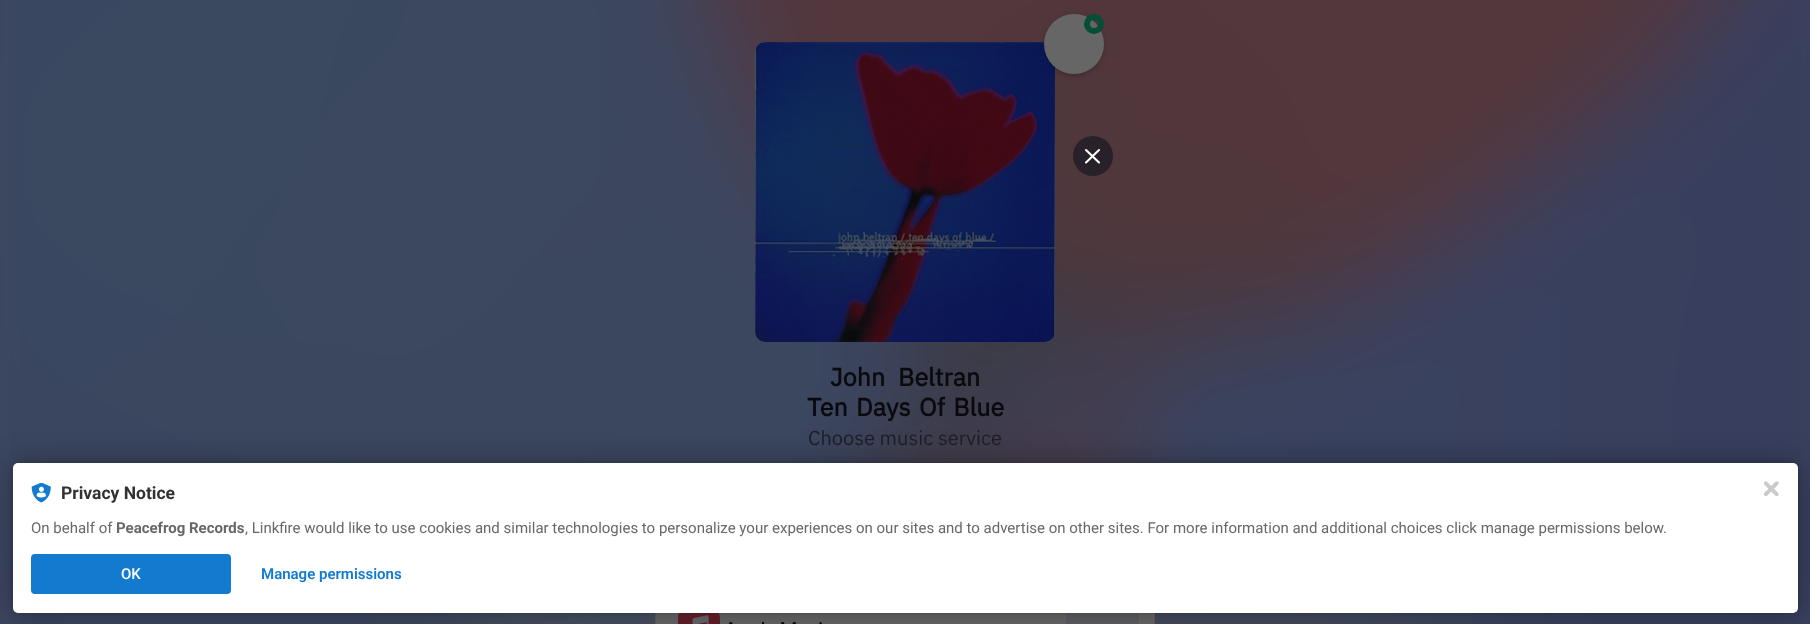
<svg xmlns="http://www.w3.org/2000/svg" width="1810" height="624">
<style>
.a{font:bold 25px IBM Plex Sans;fill:#0a090d}
.b{font:20px IBM Plex Sans;fill:#1c1e26}
.c{font:bold 17.5px Roboto;fill:#323232}
.d{font:15px Roboto;fill:#686868}
.e{font:bold 15px Roboto;fill:#686868}
.f{font:500 15px Roboto;fill:#fff}
.g{font:600 15px Roboto;fill:#137bcf}
</style>
<rect width="100%" height="100%" fill="#666"/>
<image href="1.png" x="0" y="0" width="1810" height="624"/>
<image href="2.png" x="755" y="42" width="300" height="300"/>
<rect fill="#00000033" filter="blur(2.5px)" x="1044" y="16" width="60" height="60" rx="30"/>
<circle fill="#666" cx="1074" cy="44" r="30"/>
<circle fill="none" stroke="#054f36" stroke-width="6" cx="1094" cy="24" r="7"/>
<circle fill="#292129" cx="1093" cy="156" r="20"/>
<path fill="none" stroke="#fff" stroke-width="2.1" stroke-linecap="round" stroke-linejoin="round" d="M1086 150l13 12.5m-13 0l13-12.5"/>
<path fill="none" stroke="#5c5e61" d="M655.5 493.5h499v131H655.5z"/>
<path fill="#666" d="M656 613h498v11H656z"/>
<image href="3.png" x="678" y="613" width="144" height="11"/>
<path fill="#5c5e61" d="M1066 613h73v11H1066z"/>
<rect fill="#0000001f" filter="blur(2.5px)" x="13" y="463" width="1785" height="150" rx="5"/>
<rect fill="#0000004d" filter="blur(15px)" x="13" y="463" width="1785" height="150" rx="5"/>
<rect fill="#fff" x="13" y="463" width="1785" height="150" rx="5"/>
<image href="4.png" x="31" y="483" width="20" height="20"/>
<rect fill="#137bcf" x="31" y="554" width="200" height="40" rx="4"/>
<image href="5.png" x="1764" y="481" width="15" height="15"/>
<text class="a" x="830" y="386" word-spacing="7">John Beltran</text>
<text class="a" x="807" y="416" word-spacing="2.5">Ten Days Of Blue</text>
<text class="b" x="808" y="445">Choose music service</text>
<text class="c" x="61" y="499">Privacy Notice</text>
<text class="d" x="31" y="533">On behalf of</text>
<text class="e" x="116" y="533">Peacefrog Records</text>
<text class="d" x="245" y="533">, Linkfire would like to use cookies and similar technologies to personalize your experiences on our sites and to advertise on other sites. For more information and additional choices click manage permissions below.</text>
<text class="f" x="121" y="579">OK</text>
<text class="g" x="261" y="579">Manage permissions</text>
</svg>
